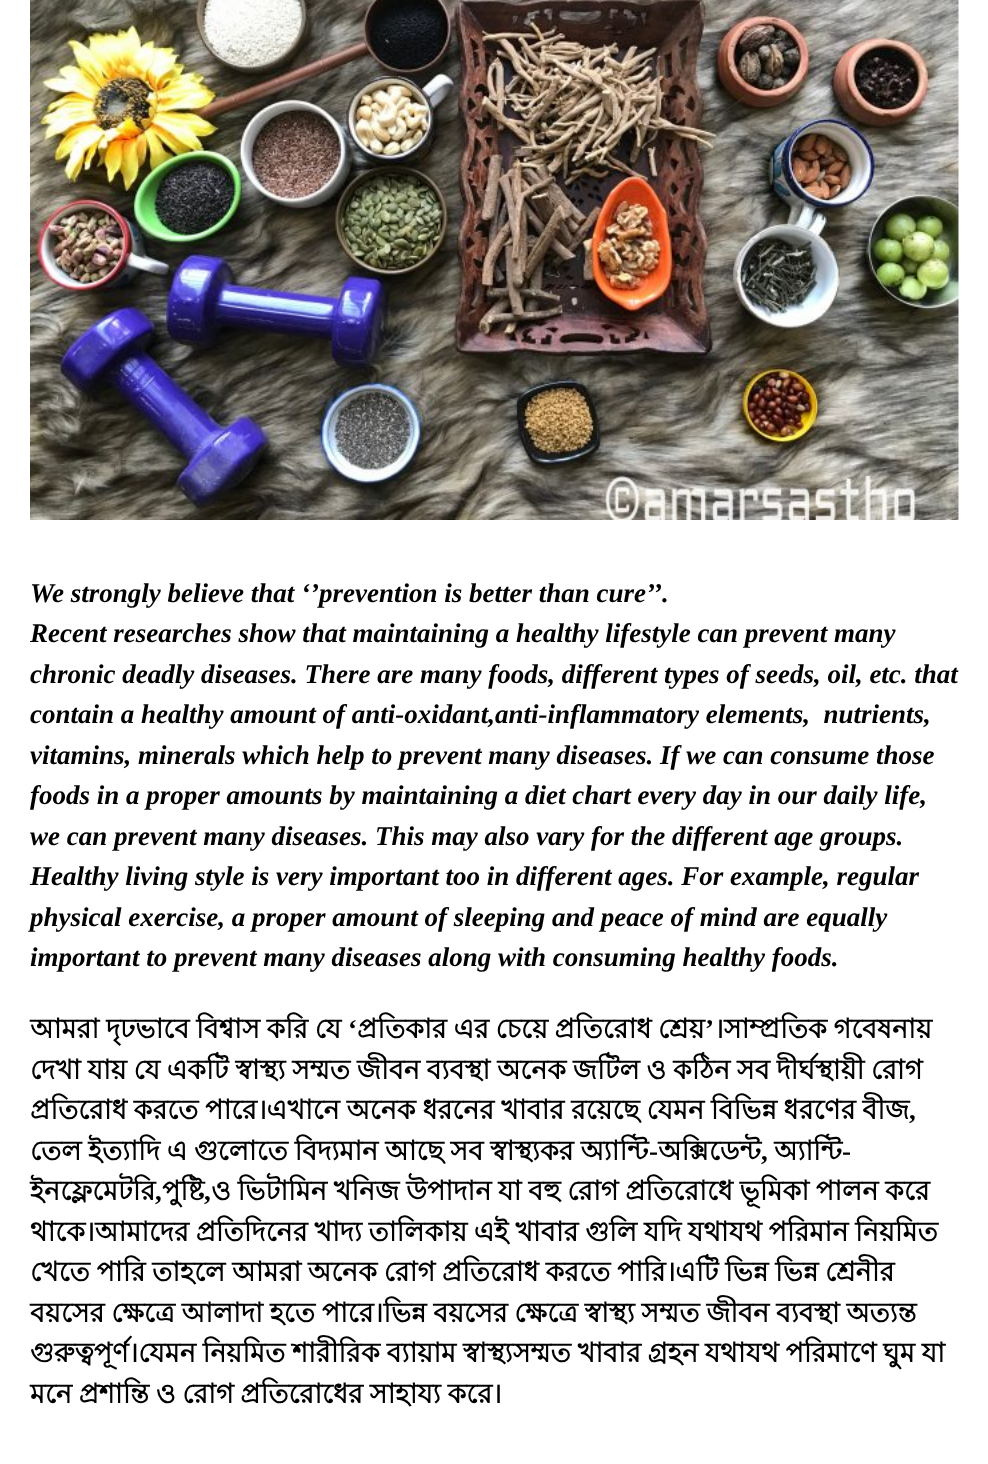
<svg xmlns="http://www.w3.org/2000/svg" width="988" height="1464">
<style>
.a{font:italic bold 27px Liberation Serif;fill:#000}
.b{font:bold 27px Lohit Bengali;fill:#000}
.c{font:bold 27px Liberation Serif;fill:#000}
</style>
<rect width="100%" height="100%" fill="#fff"/>
<image href="1.png" x="30" y="0" width="929" height="520"/>
<text class="a" x="30" y="602">We strongly believe that ‘’prevention is better than cure’’.</text>
<text class="a" x="30" y="642">Recent researches show that maintaining a healthy lifestyle can prevent many</text>
<text class="a" x="30" y="683">chronic deadly diseases. There are many foods, different types of seeds, oil, etc. that</text>
<text class="a" xml:space="preserve" x="30" y="723">contain a healthy amount of anti-oxidant,anti-inflammatory elements,  nutrients,</text>
<text class="a" x="30" y="764">vitamins, minerals which help to prevent many diseases. If we can consume those</text>
<text class="a" x="30" y="804">foods in a proper amounts by maintaining a diet chart every day in our daily life,</text>
<text class="a" x="30" y="845">we can prevent many diseases. This may also vary for the different age groups.</text>
<text class="a" x="30" y="885">Healthy living style is very important too in different ages. For example, regular</text>
<text class="a" x="30" y="926">physical exercise, a proper amount of sleeping and peace of mind are equally</text>
<text class="a" x="30" y="966">important to prevent many diseases along with consuming healthy foods.</text>
<text class="b" x="30" y="1038" word-spacing="-0.75">আমরা দৃঢভাবে বিশ্বাস করি যে</text>
<text class="c" x="348" y="1038">‘</text>
<text class="b" x="357" y="1038" word-spacing="-0.75">প্রতিকার এর চেয়ে প্রতিরোধ শ্রেয়</text>
<text class="c" x="705" y="1038">’</text>
<text class="b" x="714" y="1038" word-spacing="-0.75">।সাম্প্রতিক গবেষনায়</text>
<text class="b" x="30" y="1079" word-spacing="-0.75">দেখা যায় যে একটি স্বাস্থ্য সম্মত জীবন ব্যবস্থা অনেক জটিল ও কঠিন সব দীর্ঘস্থায়ী রোগ</text>
<text class="b" x="30" y="1119" word-spacing="-0.75">প্রতিরোধ করতে পারে।এখানে অনেক ধরনের খাবার রয়েছে যেমন বিভিন্ন ধরণের বীজ</text>
<text class="c" x="909" y="1119">,</text>
<text class="b" x="30" y="1160" word-spacing="-0.75">তেল ইত্যাদি এ গুলোতে বিদ্যমান আছে সব স্বাস্থ্যকর অ্যান্টি</text>
<text class="c" x="649" y="1160">-</text>
<text class="b" x="658" y="1160">অক্সিডেন্ট</text>
<text class="b" x="774" y="1160">অ্যান্টি</text>
<text class="c" x="842" y="1160">-</text>
<text class="c" x="761" y="1160">,</text>
<text class="b" x="30" y="1200">ইনফ্লেমেটরি</text>
<text class="b" x="211" y="1200" word-spacing="-0.75">ও ভিটামিন খনিজ উপাদান যা বহু রোগ প্রতিরোধে ভূমিকা পালন করে</text>
<text class="c" x="155" y="1200">,</text>
<text class="b" x="162" y="1200">পুষ্টি</text>
<text class="c" x="204" y="1200">,</text>
<text class="b" x="30" y="1241" word-spacing="-0.75">থাকে।আমাদের প্রতিদিনের খাদ্য তালিকায় এই খাবার গুলি যদি যথাযথ পরিমান নিয়মিত</text>
<text class="b" x="30" y="1281" word-spacing="-0.75">খেতে পারি তাহলে আমরা অনেক রোগ প্রতিরোধ করতে পারি।এটি ভিন্ন ভিন্ন শ্রেনীর</text>
<text class="b" x="30" y="1322" word-spacing="-0.75">বয়সের ক্ষেত্রে আলাদা হতে পারে।ভিন্ন বয়সের ক্ষেত্রে স্বাস্থ্য সম্মত জীবন ব্যবস্থা অত্যন্ত</text>
<text class="b" x="30" y="1362" word-spacing="-0.75">গুরুত্বপূর্ণ।যেমন নিয়মিত শারীরিক ব্যায়াম স্বাস্থ্যসম্মত খাবার গ্রহন যথাযথ পরিমাণে ঘুম যা</text>
<text class="b" x="30" y="1403" word-spacing="-0.75">মনে প্রশান্তি ও রোগ প্রতিরোধের সাহায্য করে।</text>
</svg>
